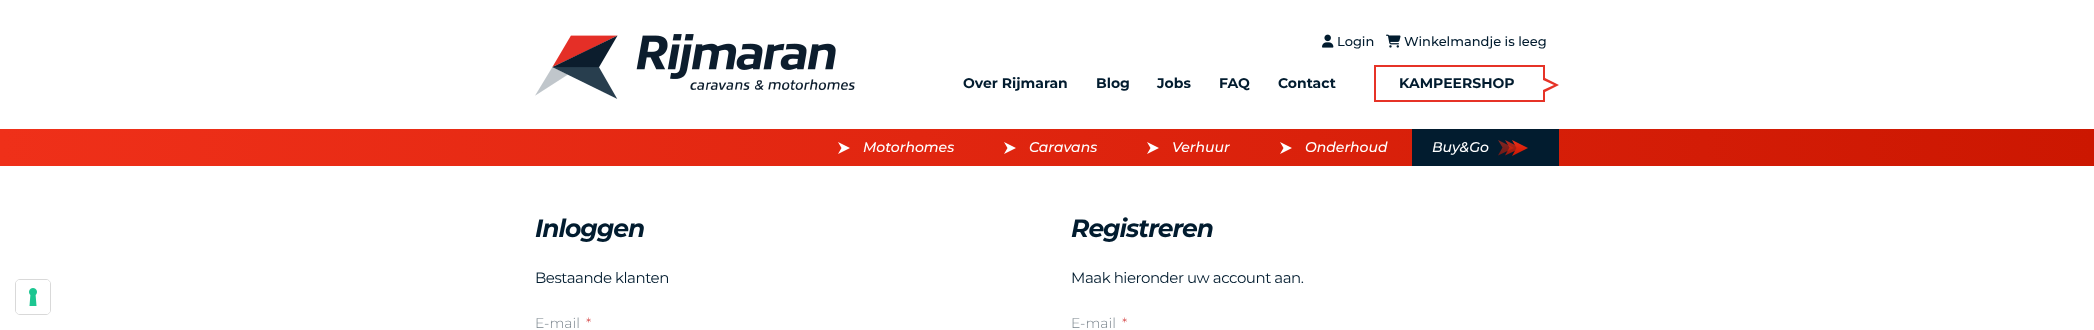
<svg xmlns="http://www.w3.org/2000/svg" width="2094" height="330">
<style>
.a{font:500 13px Montserrat;fill:#021c2f}
.b{font:bold 14px Montserrat;fill:#021c2f}
.c{font:italic 500 14px Montserrat;fill:#fff}
.d{font:italic bold 25px Montserrat;letter-spacing:-1px;fill:#021c2f}
.e{font:15px Montserrat;letter-spacing:-0.45px;fill:#021c2f}
.f{font:300 14px Montserrat;fill:#79848c}
.g{font:300 14px Montserrat;fill:#d44444}
</style>
<defs>
<clipPath id="clip1"><path d="M1374 65h185v37H1374z"/></clipPath>
<linearGradient id="g1" gradientUnits="userSpaceOnUse" x1="0" y1="148" x2="2094" y2="147"><stop offset="0" stop-color="#ef3019"/><stop offset="0.44" stop-color="#e12610"/><stop offset="1" stop-color="#cc1701"/></linearGradient>
<linearGradient id="g2" gradientUnits="userSpaceOnUse" x1="1520" y1="140" x2="1520" y2="156"><stop offset="0" stop-color="#ef3019"/><stop offset="1" stop-color="#cc1701"/></linearGradient>
<linearGradient id="g3" gradientUnits="userSpaceOnUse" x1="1513" y1="140" x2="1513" y2="155"><stop offset="0" stop-color="#ef3019" stop-opacity="0.75"/><stop offset="1" stop-color="#cc1701" stop-opacity="0.75"/></linearGradient>
<linearGradient id="g4" gradientUnits="userSpaceOnUse" x1="1506" y1="140" x2="1506" y2="155"><stop offset="0" stop-color="#ef3019" stop-opacity="0.55"/><stop offset="1" stop-color="#cc1701" stop-opacity="0.55"/></linearGradient>
</defs>
<rect width="100%" height="100%" fill="#fff"/>
<rect fill="none" stroke="#d9d9d9" x="15.5" y="279.5" width="35" height="35" rx="4.5"/>
<rect fill="#fff" x="16" y="280" width="34" height="34" rx="4"/>
<image href="1.png" x="29" y="288" width="8" height="18"/>
<image href="2.png" x="535" y="34" width="320" height="65"/>
<image href="3.png" x="1322" y="34" width="12" height="14"/>
<image href="4.png" x="1386" y="34" width="15" height="14"/>
<g clip-path="url(#clip1)">
<path fill="#e63327" d="M1543 100v-10l11-5l-11-5v-13h-167v33h167m2 3h-171v-38h171v13l14 7l-14 7z"/>
</g>
<path fill="url(#g1)" d="M0 129h2094v37H0z"/>
<path fill="#fff" d="M850 148l-12-6l3.5 6l-3.5 6z"/>
<path fill="#fff" d="M1016 148l-12-6l3.5 6l-3.5 6z"/>
<path fill="#fff" d="M1159 148l-12-6l3.5 6l-3.5 6z"/>
<path fill="#fff" d="M1292 148l-12-6l3.5 6l-3.5 6z"/>
<path fill="#021c2f" d="M1412 129h147v37H1412z"/>
<path fill="url(#g2)" d="M1516.5 148l-4.5-8l16 8l-16 8z"/>
<path fill="url(#g3)" d="M1509.5 147.5l-4.5-7.5l16 8l-16 7.5z"/>
<path fill="url(#g4)" d="M1502.5 147.5l-4.5-7.5l16 8l-16 7.5z"/>
<text class="a" x="1337" y="46">Login</text>
<text class="a" x="1404" y="46">Winkelmandje is leeg</text>
<text class="b" x="963" y="88">Over Rijmaran</text>
<text class="b" x="1096" y="88">Blog</text>
<text class="b" x="1157" y="88">Jobs</text>
<text class="b" x="1219" y="88">FAQ</text>
<text class="b" x="1278" y="88">Contact</text>
<text class="b" x="1399" y="88">KAMPEERSHOP</text>
<text class="c" x="863" y="152">Motorhomes</text>
<text class="c" x="1029" y="152">Caravans</text>
<text class="c" x="1172" y="152">Verhuur</text>
<text class="c" x="1305" y="152">Onderhoud</text>
<text class="c" x="1432" y="152">Buy&amp;Go</text>
<text class="d" x="535" y="237">Inloggen</text>
<text class="e" x="535" y="283">Bestaande klanten</text>
<text class="f" x="535" y="328">E-mail</text>
<text class="g" x="586" y="328">*</text>
<text class="d" x="1071" y="237">Registreren</text>
<text class="e" x="1071" y="283">Maak hieronder uw account aan.</text>
<text class="f" x="1071" y="328">E-mail</text>
<text class="g" x="1122" y="328">*</text>
</svg>
